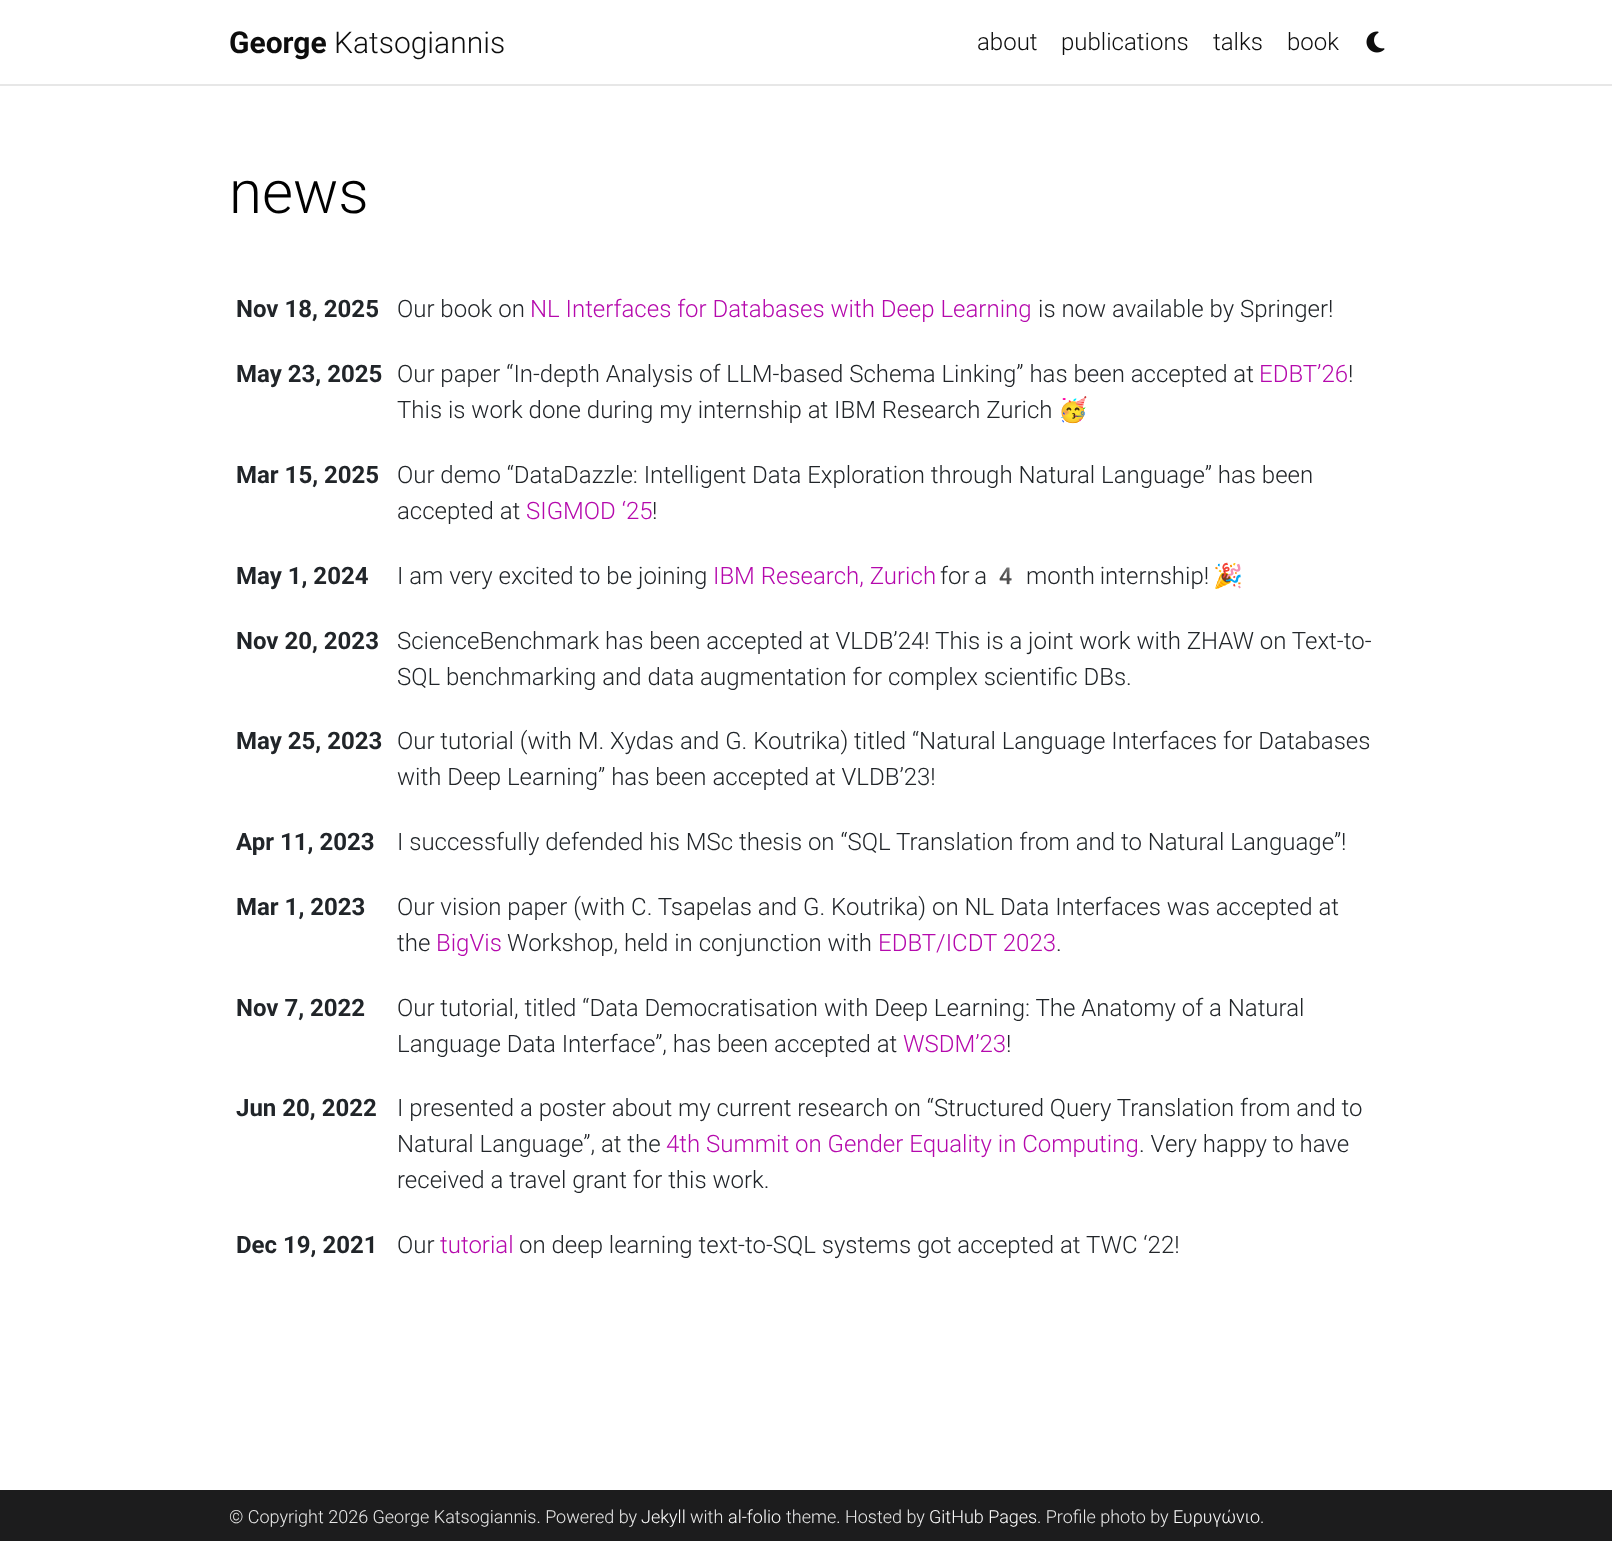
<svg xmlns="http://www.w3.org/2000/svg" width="1612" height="1541">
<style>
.a{font:bold 30px Roboto;fill:#0d0d0d}
.b{font:300 30px Roboto;fill:#0d0d0d}
.c{font:300 24px Roboto;fill:#0d0d0d}
.d{font:300 60px Roboto;fill:#000}
.e{font:bold 24px Roboto;fill:#212529}
.f{font:300 24px Roboto;fill:#212529}
.g{font:300 24px Roboto;fill:#b509ac}
.h{font:24px Noto Color Emoji;fill:#212529}
.i{font:300 18px Roboto;fill:#e8e8e8}
.j{font:300 18px Roboto;fill:#fff}
</style>
<rect width="100%" height="100%" fill="#fff"/>
<path fill="#e7e7e7" d="M0 84h1612v2H0z"/>
<image href="1.png" x="1366" y="31" width="19" height="22"/>
<path fill="#1c1c1d" d="M0 1490h1612v51H0z"/>
<text class="a" x="229" y="53">George</text>
<text class="b" x="334" y="53">Katsogiannis</text>
<text class="c" x="977" y="50">about</text>
<text class="c" x="1061" y="50">publications</text>
<text class="c" x="1213" y="50">talks</text>
<text class="c" x="1287" y="50">book</text>
<text class="d" x="229" y="213">news</text>
<text class="e" x="236" y="317">Nov 18, 2025</text>
<text class="f" x="397" y="317">Our book on</text>
<text class="g" x="530" y="317">NL Interfaces for Databases with Deep Learning</text>
<text class="f" x="1038" y="317">is now available by Springer!</text>
<text class="e" x="236" y="382">May 23, 2025</text>
<text class="f" x="397" y="382">Our paper “In-depth Analysis of LLM-based Schema Linking” has been accepted at</text>
<text class="g" x="1259" y="382">EDBT’26</text>
<text class="f" x="1348" y="382">!</text>
<text class="f" x="397" y="418">This is work done during my internship at IBM Research Zurich</text>
<text class="h" x="1058" y="418">🥳</text>
<text class="e" x="236" y="483">Mar 15, 2025</text>
<text class="f" x="397" y="483">Our demo “DataDazzle: Intelligent Data Exploration through Natural Language” has been</text>
<text class="f" x="397" y="519">accepted at</text>
<text class="g" x="526" y="519">SIGMOD ‘25</text>
<text class="f" x="652" y="519">!</text>
<text class="e" x="236" y="584">May 1, 2024</text>
<text class="f" x="397" y="584">I am very excited to be joining</text>
<text class="g" x="713" y="584">IBM Research, Zurich</text>
<text class="f" x="940" y="584" word-spacing="-1">for a</text>
<text class="h" x="991" y="584">4</text>
<text class="f" x="1026" y="584" word-spacing="-1">month internship!</text>
<text class="h" x="1213" y="584">🎉</text>
<text class="e" x="236" y="649">Nov 20, 2023</text>
<text class="f" x="397" y="649">ScienceBenchmark has been accepted at VLDB’24! This is a joint work with ZHAW on Text-to-</text>
<text class="f" x="397" y="685">SQL benchmarking and data augmentation for complex scientific DBs.</text>
<text class="e" x="236" y="749">May 25, 2023</text>
<text class="f" x="397" y="749">Our tutorial (with M. Xydas and G. Koutrika) titled “Natural Language Interfaces for Databases</text>
<text class="f" x="397" y="785">with Deep Learning” has been accepted at VLDB’23!</text>
<text class="e" x="236" y="850">Apr 11, 2023</text>
<text class="f" x="397" y="850">I successfully defended his MSc thesis on “SQL Translation from and to Natural Language”!</text>
<text class="e" x="236" y="915">Mar 1, 2023</text>
<text class="f" x="397" y="915">Our vision paper (with C. Tsapelas and G. Koutrika) on NL Data Interfaces was accepted at</text>
<text class="f" x="397" y="951">the</text>
<text class="g" x="436" y="951">BigVis</text>
<text class="f" x="507" y="951">Workshop, held in conjunction with</text>
<text class="g" x="878" y="951">EDBT/ICDT 2023</text>
<text class="f" x="1056" y="951">.</text>
<text class="e" x="236" y="1016">Nov 7, 2022</text>
<text class="f" x="397" y="1016">Our tutorial, titled “Data Democratisation with Deep Learning: The Anatomy of a Natural</text>
<text class="f" x="397" y="1052">Language Data Interface”, has been accepted at</text>
<text class="g" x="903" y="1052">WSDM’23</text>
<text class="f" x="1006" y="1052">!</text>
<text class="e" x="236" y="1116">Jun 20, 2022</text>
<text class="f" x="397" y="1116">I presented a poster about my current research on “Structured Query Translation from and to</text>
<text class="f" x="397" y="1152">Natural Language”, at the</text>
<text class="g" x="666" y="1152">4th Summit on Gender Equality in Computing</text>
<text class="f" x="1139" y="1152">. Very happy to have</text>
<text class="f" x="397" y="1188">received a travel grant for this work.</text>
<text class="e" x="236" y="1253">Dec 19, 2021</text>
<text class="f" x="397" y="1253">Our</text>
<text class="g" x="440" y="1253">tutorial</text>
<text class="f" x="519" y="1253">on deep learning text-to-SQL systems got accepted at TWC ‘22!</text>
<text class="i" x="229" y="1523">© Copyright 2026 George Katsogiannis. Powered by</text>
<text class="j" x="641" y="1523">Jekyll</text>
<text class="i" x="690" y="1523">with</text>
<text class="j" x="728" y="1523">al-folio</text>
<text class="i" x="786" y="1523">theme. Hosted by</text>
<text class="j" x="929" y="1523">GitHub Pages</text>
<text class="i" x="1037" y="1523">. Profile photo by</text>
<text class="j" x="1173" y="1523">Ευρυγώνιο</text>
<text class="i" x="1260" y="1523">.</text>
</svg>
